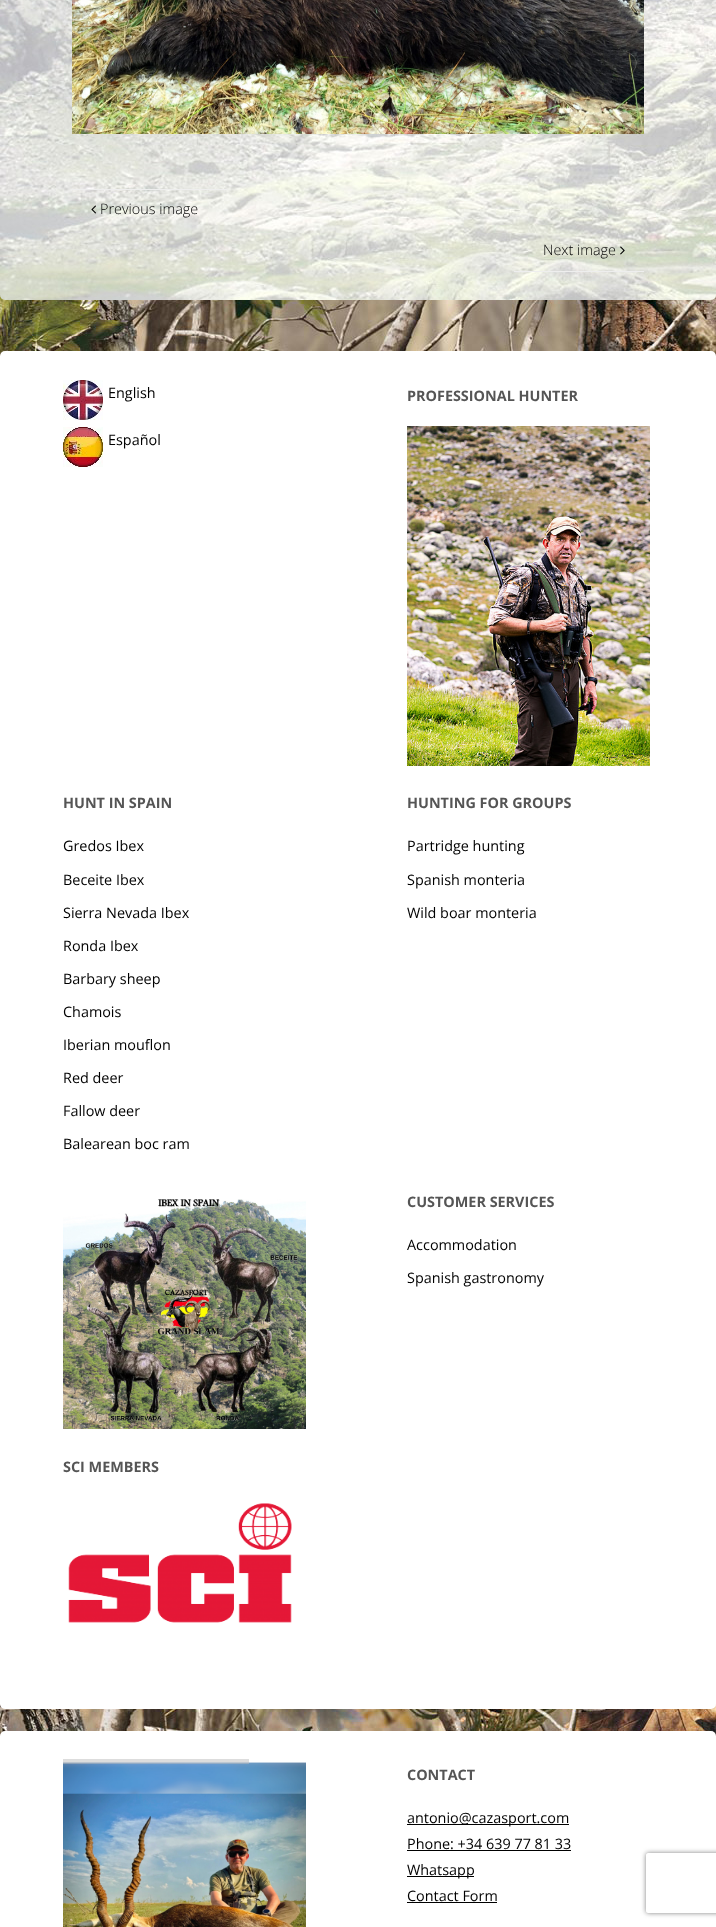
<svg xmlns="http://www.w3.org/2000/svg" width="716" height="1927">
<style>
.a{font:300 14.4px Open Sans;fill:#000}
.b{font:14.4px Open Sans;fill:#000}
.c{font:bold 14.4px Open Sans;fill:#555}
</style>
<defs>
<clipPath id="clip1"><path d="M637 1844h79v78h-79zm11 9h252c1 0 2 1 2 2v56c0 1-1 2-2 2h-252c-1 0-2-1-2-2v-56c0-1 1-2 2-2z" clip-rule="evenodd"/></clipPath>
</defs>
<rect width="100%" height="100%" fill="#fff"/>
<image href="1.png" x="0" y="295" width="716" height="1441"/>
<image href="2.png" x="0" y="0" width="716" height="300"/>
<image href="3.png" x="72" y="0" width="572" height="134"/>
<path fill="#eee" d="M72 189h155v1H72z"/>
<image href="4.png" x="91" y="205" width="5" height="9"/>
<image href="5.png" x="620" y="246" width="5" height="9"/>
<path fill="#eee" d="M514 271h130v1H514z"/>
<rect fill="#fff" y="351" width="716" height="1358" rx="5"/>
<image href="6.png" x="63" y="380" width="40" height="40"/>
<image href="7.png" x="63" y="427" width="40" height="40"/>
<image href="8.png" x="407" y="426" width="243" height="340"/>
<image href="9.png" x="63" y="1199" width="243" height="230"/>
<image href="10.png" x="68" y="1503" width="224" height="120"/>
<rect fill="#fff" y="1731" width="716" height="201" rx="5"/>
<image href="11.png" x="63" y="1762" width="243" height="165"/>
<path fill="#bbbbbb80" d="M63 1759h186v5H63z"/>
<path fill="#000" d="M407 1824h162v1H407z"/>
<path fill="#000" d="M407 1850h164v1H407z"/>
<path fill="#000" d="M407 1876h67v1H407z"/>
<path fill="#000" d="M407 1902h90v1H407z"/>
<g clip-path="url(#clip1)">
<rect fill="#808080" filter="blur(2.5px)" x="646" y="1853" width="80" height="60" rx="2"/>
</g>
<text class="a" x="100" y="214">Previous image</text>
<text class="a" x="543" y="255">Next image</text>
<text class="b" x="108" y="398">English</text>
<text class="b" x="108" y="445">Español</text>
<text class="c" x="407" y="401">PROFESSIONAL HUNTER</text>
<text class="c" x="63" y="808">HUNT IN SPAIN</text>
<text class="b" x="63" y="851">Gredos Ibex</text>
<text class="b" x="63" y="885">Beceite Ibex</text>
<text class="b" x="63" y="918">Sierra Nevada Ibex</text>
<text class="b" x="63" y="951">Ronda Ibex</text>
<text class="b" x="63" y="984">Barbary sheep</text>
<text class="b" x="63" y="1017">Chamois</text>
<text class="b" x="63" y="1050">Iberian mouflon</text>
<text class="b" x="63" y="1083">Red deer</text>
<text class="b" x="63" y="1116">Fallow deer</text>
<text class="b" x="63" y="1149">Balearean boc ram</text>
<text class="c" x="407" y="808">HUNTING FOR GROUPS</text>
<text class="b" x="407" y="851">Partridge hunting</text>
<text class="b" x="407" y="885">Spanish monteria</text>
<text class="b" x="407" y="918">Wild boar monteria</text>
<text class="c" x="407" y="1207">CUSTOMER SERVICES</text>
<text class="b" x="407" y="1250">Accommodation</text>
<text class="b" x="407" y="1283">Spanish gastronomy</text>
<text class="c" x="63" y="1472">SCI MEMBERS</text>
<text class="c" x="407" y="1780">CONTACT</text>
<text class="b" x="407" y="1823">antonio@cazasport.com</text>
<text class="b" x="407" y="1849">Phone: +34 639 77 81 33</text>
<text class="b" x="407" y="1875">Whatsapp</text>
<text class="b" x="407" y="1901">Contact Form</text>
</svg>
